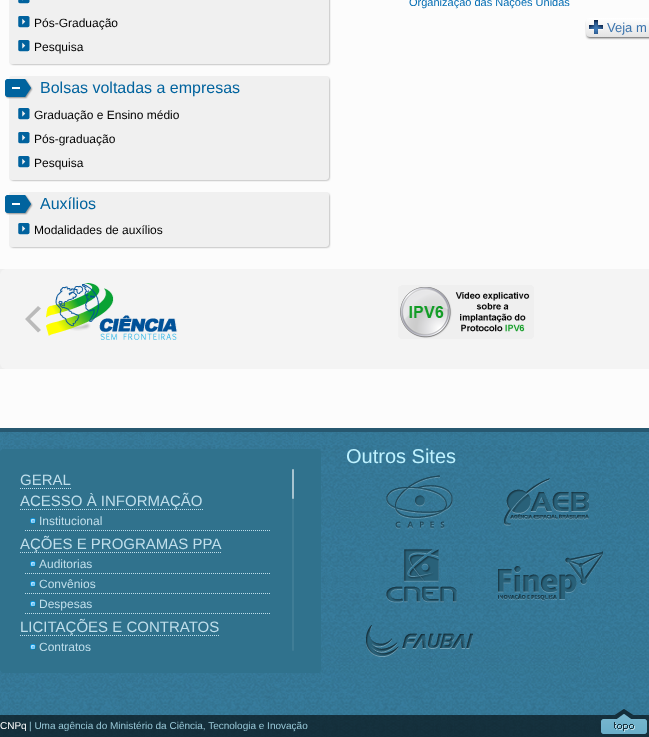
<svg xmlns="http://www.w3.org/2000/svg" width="649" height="737">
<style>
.a{font:12px Liberation Sans;fill:#000}
.b{font:16px Liberation Sans;fill:#00639e}
.c{font:11px Liberation Sans;fill:#006bb2}
.d{font:13px Liberation Sans;fill:#3b74ad}
.e{font:20px Liberation Sans;fill:#bff2ff}
.f{font:15px Liberation Sans;fill:#bfdeeb}
.g{font:12px Liberation Sans;fill:#bfdeeb}
.h{font:10px Liberation Sans;fill:#fff}
.i{font:10px Liberation Sans;fill:#99c9d8}
</style>
<defs>
<linearGradient id="g1" gradientUnits="userSpaceOnUse" x1="586" y1="18" x2="586" y2="37"><stop offset="0" stop-color="#fff"/><stop offset="1" stop-color="#e4e4e4"/></linearGradient>
<clipPath id="clip1"><path d="M20 469h251v182H20z"/></clipPath>
</defs>
<rect width="100%" height="100%" fill="#fcfcfc"/>
<rect fill="#00000080" filter="blur(1px)" x="11" y="-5" width="318" height="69" rx="2"/>
<rect fill="#f0f0f0" x="9" y="-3" width="320" height="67" rx="3"/>
<image href="1.png" x="18" y="0" width="12" height="4"/>
<image href="2.png" x="18" y="16" width="12" height="12"/>
<image href="2.png" x="18" y="40" width="12" height="12"/>
<rect fill="#00000080" filter="blur(1px)" x="11" y="78" width="318" height="102" rx="2"/>
<rect fill="#f0f0f0" x="9" y="76" width="320" height="104" rx="3"/>
<image href="3.png" x="5" y="79" width="28" height="20"/>
<image href="2.png" x="18" y="108" width="12" height="12"/>
<image href="2.png" x="18" y="132" width="12" height="12"/>
<image href="2.png" x="18" y="156" width="12" height="12"/>
<rect fill="#00000080" filter="blur(1px)" x="11" y="194" width="318" height="53" rx="2"/>
<rect fill="#f0f0f0" x="9" y="192" width="320" height="55" rx="3"/>
<image href="3.png" x="5" y="195" width="28" height="20"/>
<image href="2.png" x="18" y="223" width="12" height="12"/>
<rect fill="#565656" filter="blur(1px)" x="587" y="21" width="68" height="17" rx="3"/>
<rect fill="url(#g1)" x="586" y="18" width="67" height="19" rx="4"/>
<image href="4.png" x="589" y="20" width="14" height="14"/>
<path fill="#eee" d="M0 269h6v100H0z"/>
<rect fill="#f4f4f4" y="269" width="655" height="100" rx="6"/>
<image href="5.png" x="46" y="283" width="132" height="57"/>
<image href="6.png" x="398" y="285" width="136" height="54"/>
<path fill="#bababa" d="M38 306l3 2.5l-11 10.5l11 11l-3 2.5l-13-13.5z"/>
<image href="7.png" x="0" y="432" width="649" height="305"/>
<path fill="#275870" d="M0 428h649v4H0z"/>
<image href="8.png" x="386" y="475" width="67" height="54"/>
<image href="9.png" x="504" y="478" width="85" height="48"/>
<image href="10.png" x="386" y="549" width="71" height="54"/>
<image href="11.png" x="498" y="551" width="105" height="50"/>
<image href="12.png" x="366" y="625" width="107" height="32"/>
<rect fill="#30728d" y="449" width="321" height="224" rx="4"/>
<path fill="none" stroke="#bfdeeb" stroke-dasharray="1 1" d="M20 488.5h51"/>
<path fill="none" stroke="#bfdeeb" stroke-dasharray="1 1" d="M20 509.5h183"/>
<image href="13.png" x="30" y="518" width="6" height="6"/>
<path fill="none" stroke="#bfdeeb" stroke-dasharray="1 1" d="M25 530.5h246"/>
<path fill="none" stroke="#bfdeeb" stroke-dasharray="1 1" d="M20 552.5h201"/>
<image href="13.png" x="30" y="561" width="6" height="6"/>
<path fill="none" stroke="#bfdeeb" stroke-dasharray="1 1" d="M25 573.5h246"/>
<image href="13.png" x="30" y="581" width="6" height="6"/>
<path fill="none" stroke="#bfdeeb" stroke-dasharray="1 1" d="M25 593.5h246"/>
<image href="13.png" x="30" y="601" width="6" height="6"/>
<path fill="none" stroke="#bfdeeb" stroke-dasharray="1 1" d="M25 613.5h246"/>
<path fill="none" stroke="#bfdeeb" stroke-dasharray="1 1" d="M20 635.5h199"/>
<image href="13.png" x="30" y="644" width="6" height="6"/>
<rect fill="#3f7d96" x="292" y="469" width="2" height="182" rx="1"/>
<rect fill="#cbdce3bf" x="292" y="469" width="2" height="30" rx="1"/>
<path fill="#00000099" d="M0 715h649v22H0z"/>
<image href="14.png" x="601" y="709" width="46" height="25"/>
<text class="a" x="34" y="27">Pós-Graduação</text>
<text class="a" x="34" y="51">Pesquisa</text>
<text class="b" x="40" y="93">Bolsas voltadas a empresas</text>
<text class="a" x="34" y="119">Graduação e Ensino médio</text>
<text class="a" x="34" y="143">Pós-graduação</text>
<text class="a" x="34" y="167">Pesquisa</text>
<text class="b" x="40" y="209">Auxílios</text>
<text class="a" x="34" y="234">Modalidades de auxílios</text>
<text class="c" x="409" y="6">Organização das Nações Unidas</text>
<text class="d" x="607" y="32">Veja m</text>
<text class="e" x="346" y="463">Outros Sites</text>
<text class="f" x="20" y="485">GERAL</text>
<text class="f" x="20" y="506">ACESSO À INFORMAÇÃO</text>
<text class="g" x="39" y="525">Institucional</text>
<text class="f" x="20" y="549">AÇÕES E PROGRAMAS PPA</text>
<text class="g" x="39" y="568">Auditorias</text>
<text class="g" x="39" y="588">Convênios</text>
<text class="g" x="39" y="608">Despesas</text>
<text class="f" x="20" y="632">LICITAÇÕES E CONTRATOS</text>
<g clip-path="url(#clip1)">
<text class="g" x="39" y="651">Contratos</text>
</g>
<text class="h" x="0" y="729">CNPq</text>
<text class="i" x="29" y="729">| Uma agência do Ministério da Ciência, Tecnologia e Inovação</text>
</svg>
